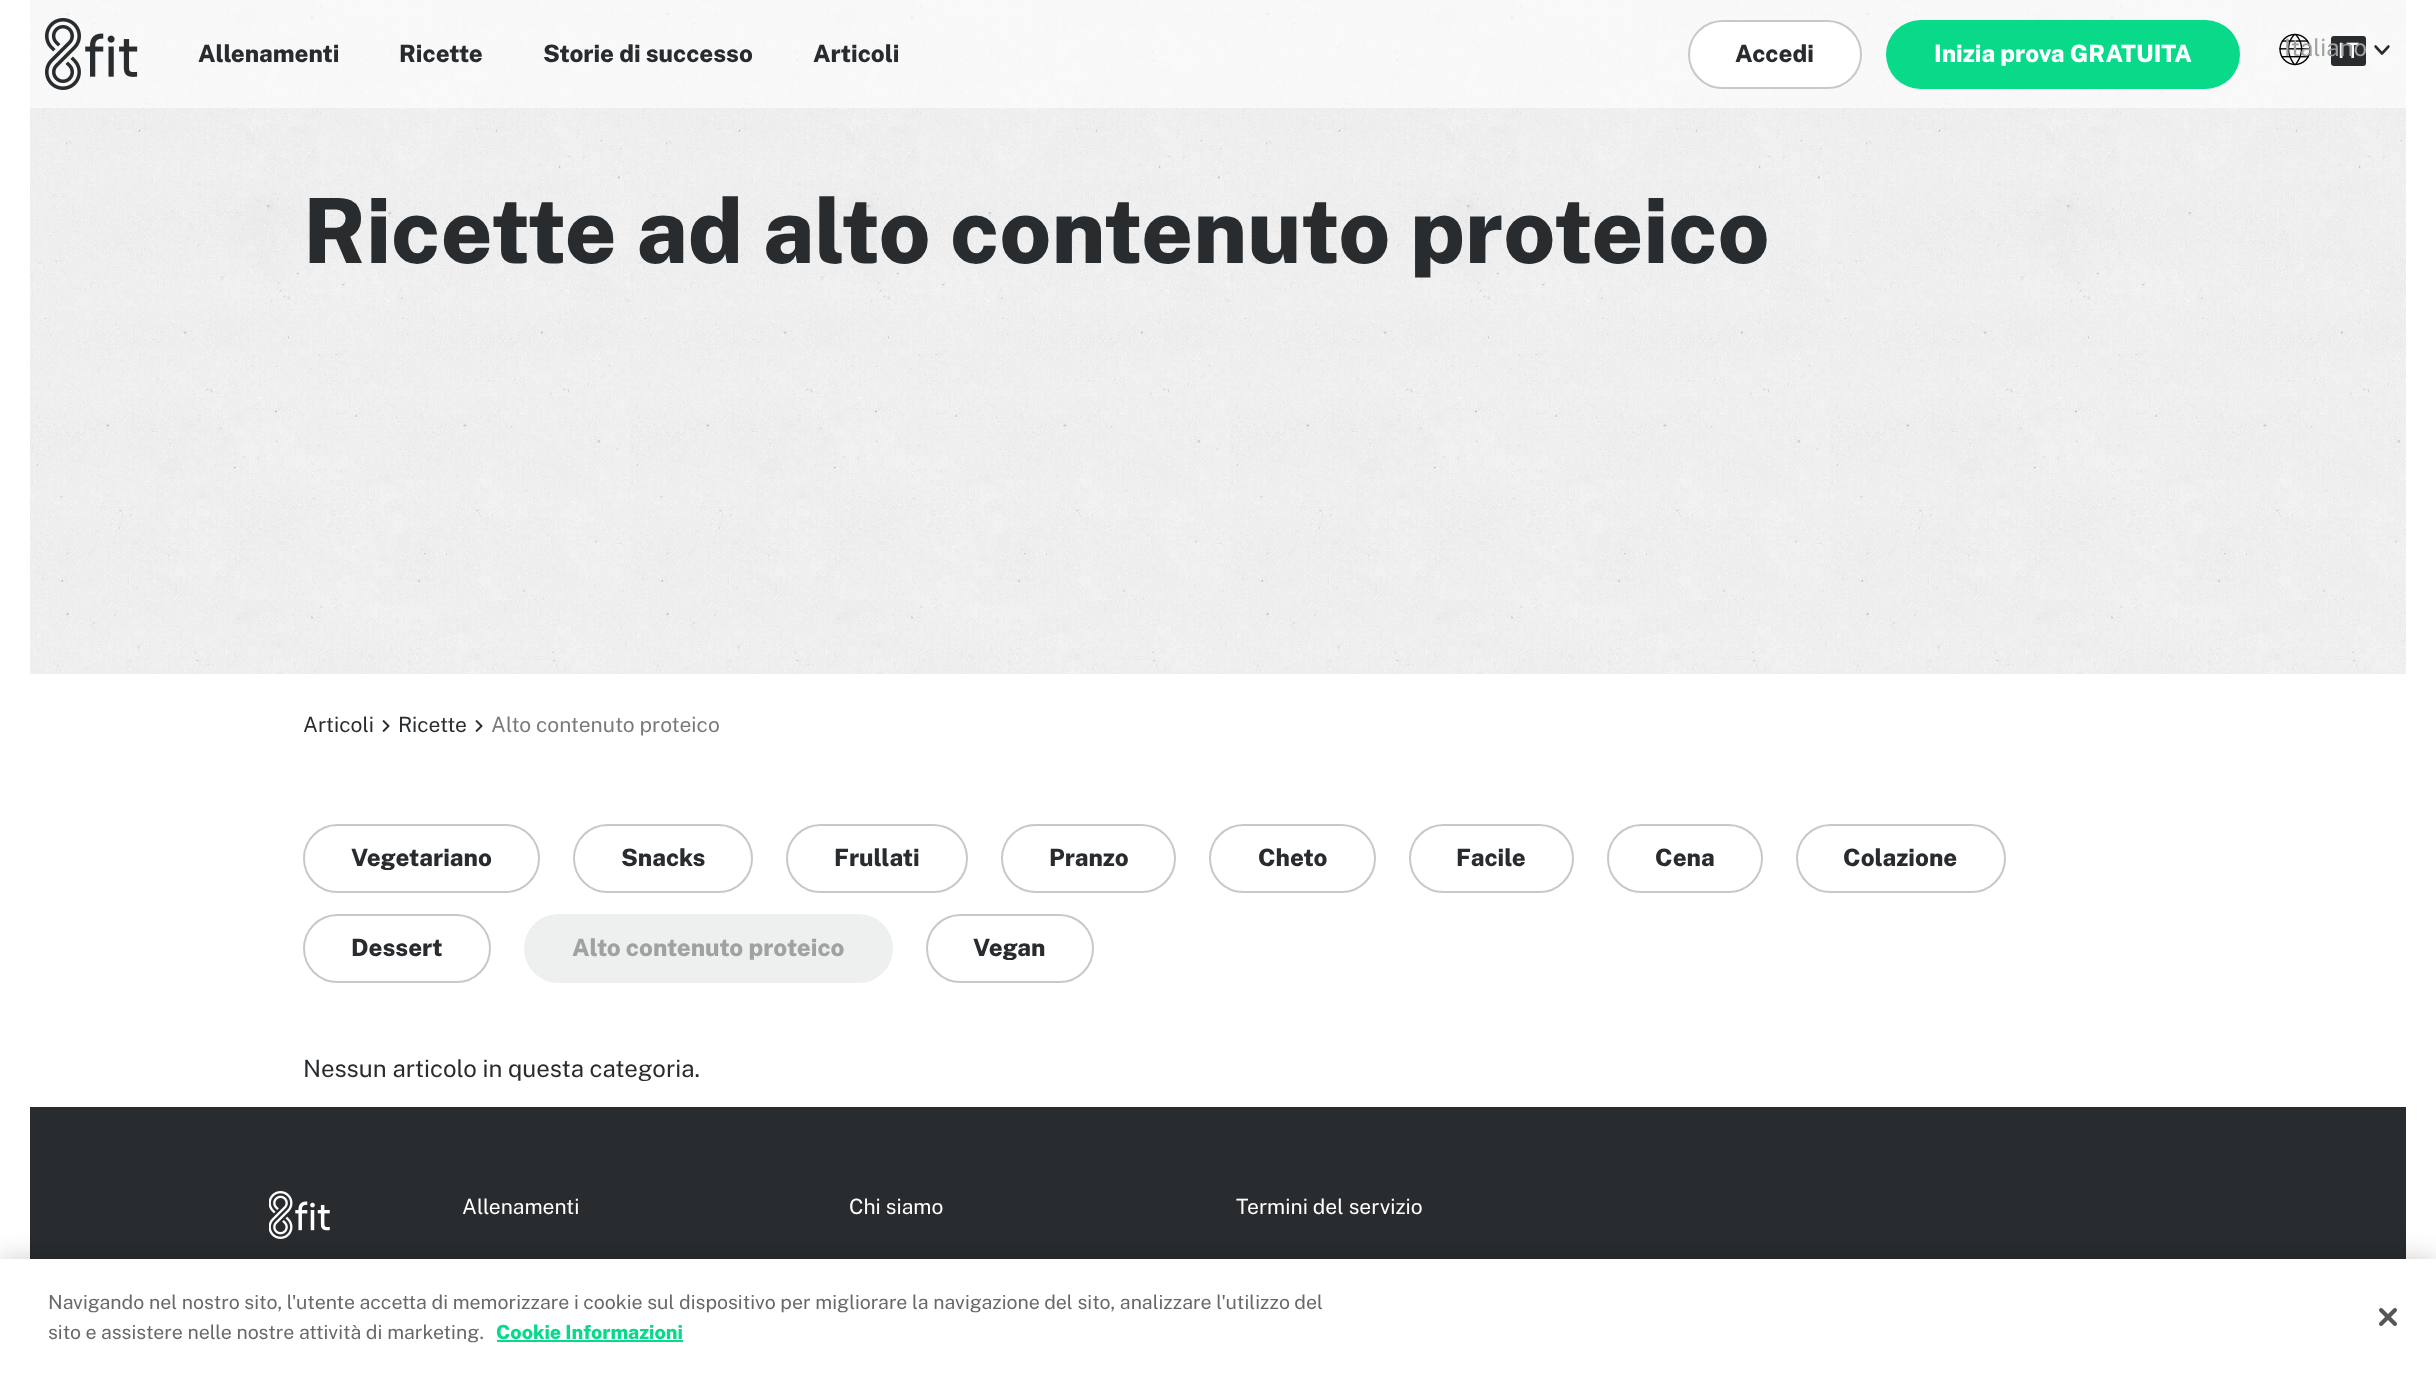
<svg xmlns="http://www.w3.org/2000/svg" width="2436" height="1381">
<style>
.a{font:800 24px Public Sans;fill:#292c2f}
.b{font:800 24px Public Sans;fill:#fff}
.c{font:600 21px Public Sans;letter-spacing:2px;fill:#fff}
.d{font:24px Public Sans;fill:#9fa2a2}
.e{font:800 90px Public Sans;fill:#292c2f}
.f{font:21px Public Sans;fill:#292c2f}
.g{font:21px Public Sans;fill:#787a7c}
.h{font:800 24px Public Sans;fill:#9fa2a2}
.i{font:24px Public Sans;fill:#292c2f}
.j{font:21px Public Sans;fill:#fff}
.k{font:19.5px Public Sans;fill:#696969}
.l{font:800 19.5px Public Sans;fill:#08da8a}
</style>
<rect width="100%" height="100%" fill="#fff"/>
<path fill="#efefef" d="M30 673h2376v1H30z"/>
<image href="4.png" x="30" y="0" width="2376" height="674"/>
<path fill="#ffffff99" d="M30 0h2376v108H30z"/>
<image href="1.png" x="45" y="18" width="93" height="72"/>
<rect fill="#fff" stroke="#c7c9c9" stroke-width="2" x="1689" y="21" width="172" height="67" rx="33.5"/>
<rect fill="#08da8a" x="1886" y="20" width="354" height="69" rx="34.5"/>
<image href="2.png" x="2279" y="33" width="32" height="33"/>
<rect fill="#292c2f" x="2331" y="36" width="35" height="30" rx="3"/>
<image href="3.png" x="2374" y="45" width="16" height="10"/>
<image href="5.png" x="382" y="720" width="8" height="12"/>
<image href="5.png" x="475" y="720" width="8" height="12"/>
<rect fill="none" stroke="#c7c9c9" stroke-width="2" x="304" y="825" width="235" height="67" rx="33.5"/>
<rect fill="none" stroke="#c7c9c9" stroke-width="2" x="574" y="825" width="178" height="67" rx="33.5"/>
<rect fill="none" stroke="#c7c9c9" stroke-width="2" x="787" y="825" width="180" height="67" rx="33.5"/>
<rect fill="none" stroke="#c7c9c9" stroke-width="2" x="1002" y="825" width="173" height="67" rx="33.5"/>
<rect fill="none" stroke="#c7c9c9" stroke-width="2" x="1210" y="825" width="165" height="67" rx="33.5"/>
<rect fill="none" stroke="#c7c9c9" stroke-width="2" x="1410" y="825" width="163" height="67" rx="33.5"/>
<rect fill="none" stroke="#c7c9c9" stroke-width="2" x="1608" y="825" width="154" height="67" rx="33.5"/>
<rect fill="none" stroke="#c7c9c9" stroke-width="2" x="1797" y="825" width="208" height="67" rx="33.5"/>
<rect fill="none" stroke="#c7c9c9" stroke-width="2" x="304" y="915" width="186" height="67" rx="33.5"/>
<rect fill="#eef0ef" stroke="#eef0ef" stroke-width="2" x="525" y="915" width="367" height="67" rx="33.5"/>
<rect fill="none" stroke="#c7c9c9" stroke-width="2" x="927" y="915" width="166" height="67" rx="33.5"/>
<path fill="#292c2f" d="M30 1107h2376v152H30z"/>
<image href="6.png" x="269" y="1191" width="61" height="48"/>
<path fill="#00000033" filter="blur(13.5px)" d="M0 1259h2436v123H0z"/>
<path fill="#fff" d="M0 1259h2436v122H0z"/>
<path fill="#08da8a" d="M497 1340h186v2H497z"/>
<image href="7.png" x="2379" y="1308" width="18" height="18"/>
<text class="a" x="198" y="62">Allenamenti</text>
<text class="a" x="399" y="62">Ricette</text>
<text class="a" x="543" y="62">Storie di successo</text>
<text class="a" x="813" y="62">Articoli</text>
<text class="a" x="1735" y="62">Accedi</text>
<text class="b" x="1934" y="62">Inizia prova GRATUITA</text>
<text class="c" x="2338" y="58">IT</text>
<text class="d" x="2284" y="56">Italiano</text>
<text class="e" x="303" y="263">Ricette ad alto contenuto proteico</text>
<text class="f" x="303" y="732">Articoli</text>
<text class="f" x="398" y="732">Ricette</text>
<text class="g" x="491" y="732">Alto contenuto proteico</text>
<text class="a" x="351" y="866">Vegetariano</text>
<text class="a" x="621" y="866">Snacks</text>
<text class="a" x="834" y="866">Frullati</text>
<text class="a" x="1049" y="866">Pranzo</text>
<text class="a" x="1258" y="866">Cheto</text>
<text class="a" x="1456" y="866">Facile</text>
<text class="a" x="1655" y="866">Cena</text>
<text class="a" x="1843" y="866">Colazione</text>
<text class="a" x="351" y="956">Dessert</text>
<text class="h" x="572" y="956">Alto contenuto proteico</text>
<text class="a" x="973" y="956">Vegan</text>
<text class="i" x="303" y="1077">Nessun articolo in questa categoria.</text>
<text class="j" x="462" y="1214">Allenamenti</text>
<text class="j" x="849" y="1214">Chi siamo</text>
<text class="j" x="1236" y="1214">Termini del servizio</text>
<text class="k" x="48" y="1309">Navigando nel nostro sito, l'utente accetta di memorizzare i cookie sul dispositivo per migliorare la navigazione del sito, analizzare l'utilizzo del</text>
<text class="k" x="48" y="1339">sito e assistere nelle nostre attività di marketing.</text>
<text class="l" x="496" y="1339">Cookie Informazioni</text>
</svg>
